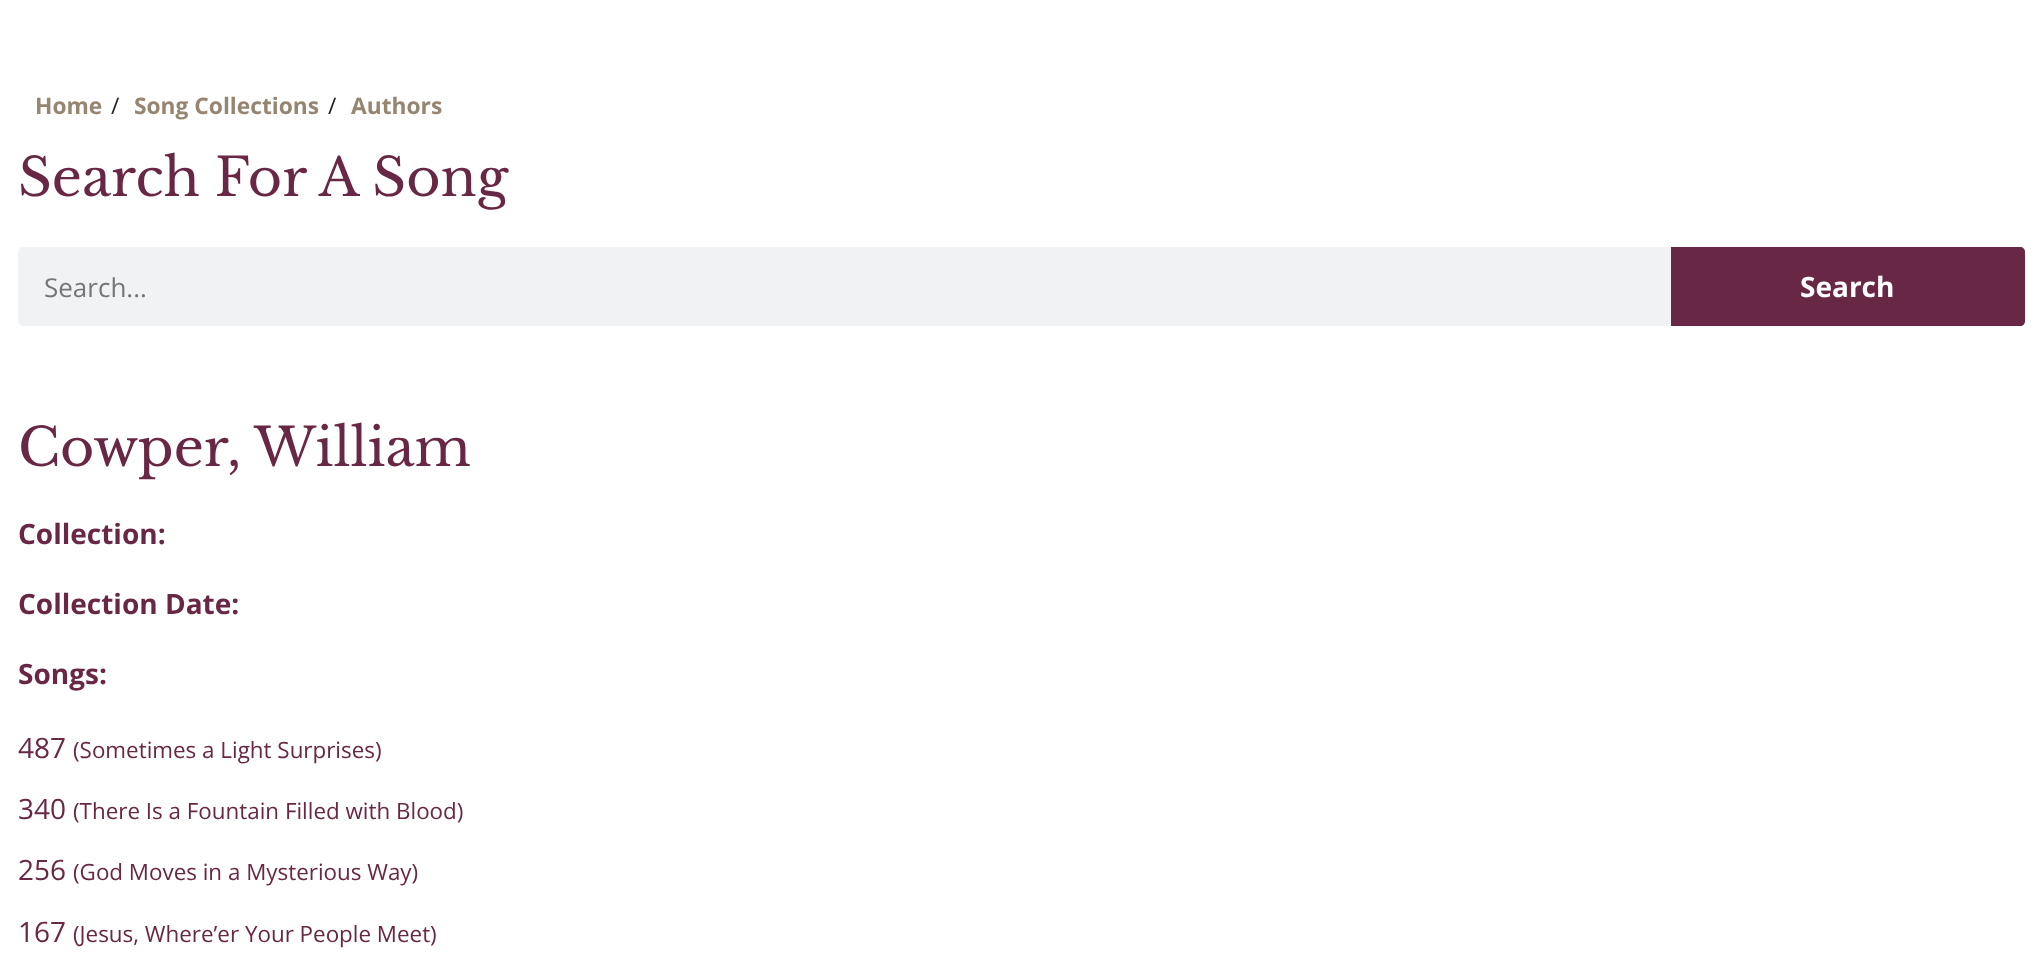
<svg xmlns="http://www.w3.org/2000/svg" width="2041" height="967">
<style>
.a{font:bold 22.75px Open Sans;fill:#968570}
.b{font:22.75px Open Sans;fill:#222}
.c{font:52.5px Libre Baskerville;fill:#682745}
.d{font:26px Open Sans;fill:#757576}
.e{font:bold 28px Open Sans;fill:#fff}
.f{font:bold 28px Open Sans;fill:#682745}
.g{font:28px Open Sans;fill:#682745}
.h{font:22.4px Open Sans;fill:#682745}
</style>
<rect width="100%" height="100%" fill="#fff"/>
<rect fill="#f1f2f3" x="18" y="247" width="2007" height="79" rx="5"/>
<path fill="#682745" d="M1671 247h349c3 0 5 2 5 5v69c0 3-2 5-5 5h-349z"/>
<text class="a" x="35" y="114">Home</text>
<text class="b" x="111" y="114">/</text>
<text class="a" x="134" y="114">Song Collections</text>
<text class="b" x="328" y="114">/</text>
<text class="a" x="351" y="114">Authors</text>
<text class="c" x="18" y="196">Search For A Song</text>
<text class="d" x="44" y="297">Search...</text>
<text class="e" x="1800" y="297">Search</text>
<text class="c" x="18" y="466">Cowper, William</text>
<text class="f" x="18" y="544">Collection:</text>
<text class="f" x="18" y="614">Collection Date:</text>
<text class="f" x="18" y="684">Songs:</text>
<text class="g" x="18" y="758">487</text>
<text class="h" x="73" y="758">(Sometimes a Light Surprises)</text>
<text class="g" x="18" y="819">340</text>
<text class="h" x="73" y="819">(There Is a Fountain Filled with Blood)</text>
<text class="g" x="18" y="880">256</text>
<text class="h" x="73" y="880">(God Moves in a Mysterious Way)</text>
<text class="g" x="18" y="942">167</text>
<text class="h" x="73" y="942">(Jesus, Where’er Your People Meet)</text>
</svg>
